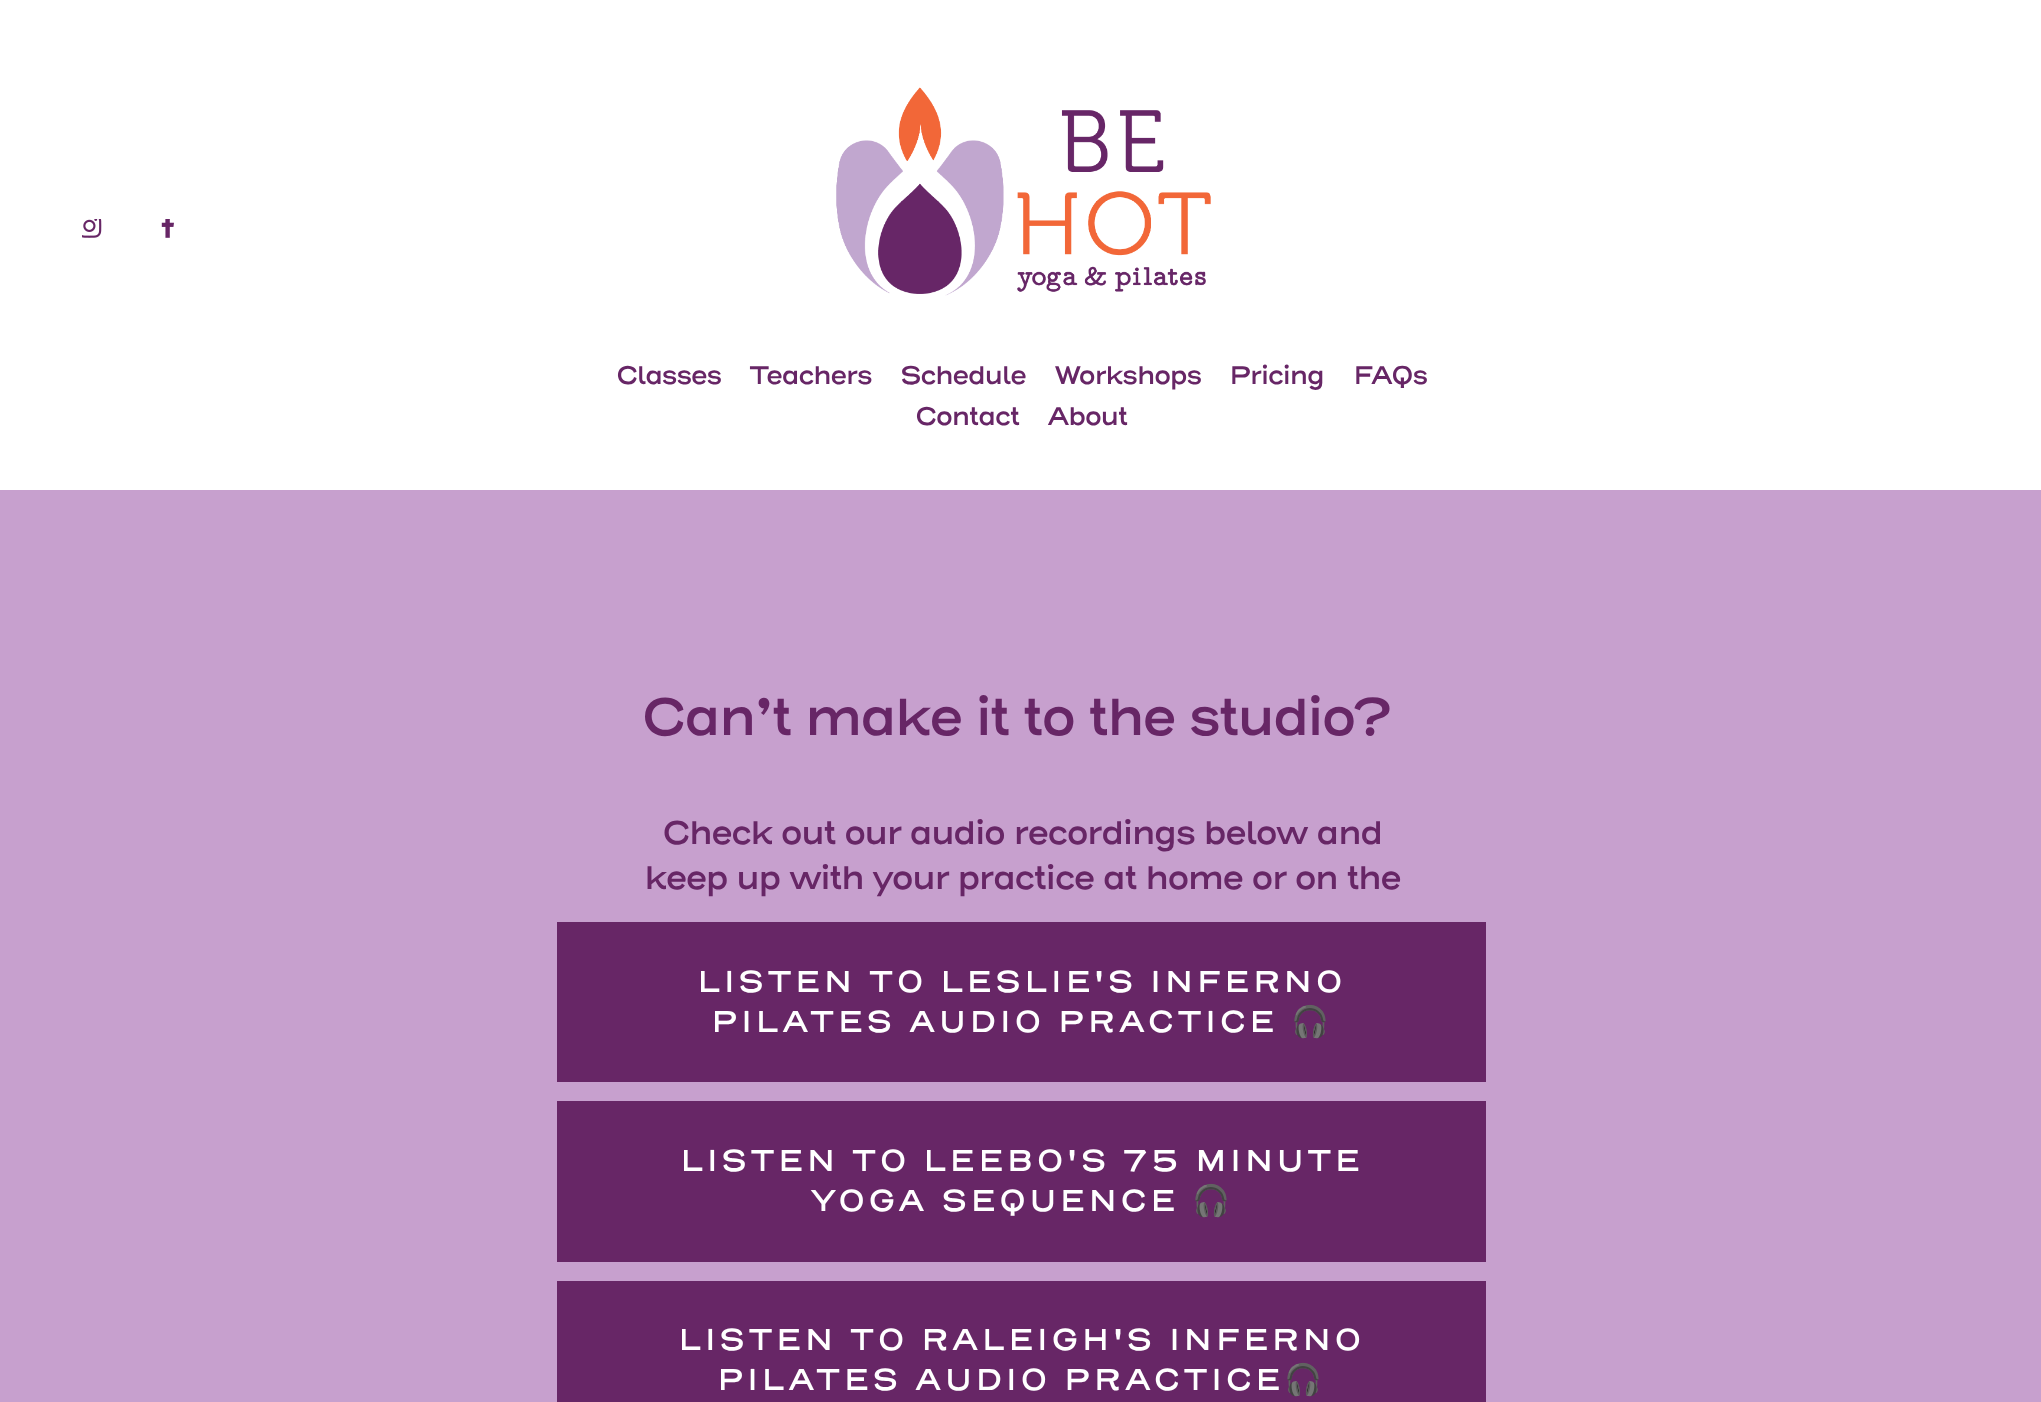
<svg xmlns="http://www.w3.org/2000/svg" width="2041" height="1402">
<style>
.a{font:600 25.5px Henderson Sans;letter-spacing:-1.5px;fill:#672666}
.b{font:600 52.5px Henderson Sans;letter-spacing:-3.15px;fill:#672666}
.c{font:600 32.9px Henderson Sans;letter-spacing:-1.95px;fill:#672666}
.d{font:600 30.45px Henderson Sans;letter-spacing:3.05px;fill:#fff}
.e{font:bold 30.45px Noto Color Emoji;letter-spacing:3.05px;fill:#fff}
</style>
<rect width="100%" height="100%" fill="#c7a0ce"/>
<path fill="#fff" d="M0 0h2041v490H0z"/>
<image href="1.png" x="82" y="219" width="20" height="19"/>
<image href="2.png" x="161" y="219" width="13" height="19"/>
<image href="3.png" x="836" y="87" width="375" height="209"/>
<path fill="#672666" d="M557 922h929v160H557z"/>
<path fill="#672666" d="M557 1101h929v161H557z"/>
<path fill="#672666" d="M557 1281h929v121H557z"/>
<text class="a" x="616" y="384">Classes</text>
<text class="a" x="749" y="384">Teachers</text>
<text class="a" x="900" y="384">Schedule</text>
<text class="a" x="1054" y="384">Workshops</text>
<text class="a" x="1229" y="384">Pricing</text>
<text class="a" x="1353" y="384">FAQs</text>
<text class="a" x="915" y="425">Contact</text>
<text class="a" x="1047" y="425">About</text>
<text class="b" x="641" y="735">Can’t make it to the studio?</text>
<text class="c" x="662" y="844">Check out our audio recordings below and</text>
<text class="c" x="644" y="889">keep up with your practice at home or on the</text>
<text class="d" x="697" y="992">LISTEN TO LESLIE'S INFERNO</text>
<text class="d" x="711" y="1032">PILATES AUDIO PRACTICE</text>
<text class="e" x="1291" y="1032">🎧</text>
<text class="d" x="680" y="1171">LISTEN TO LEEBO'S 75 MINUTE</text>
<text class="d" x="810" y="1211">YOGA SEQUENCE</text>
<text class="e" x="1192" y="1211">🎧</text>
<text class="d" x="678" y="1350">LISTEN TO RALEIGH'S INFERNO</text>
<text class="d" x="717" y="1390">PILATES AUDIO PRACTICE</text>
<text class="e" x="1284" y="1390">🎧</text>
</svg>
